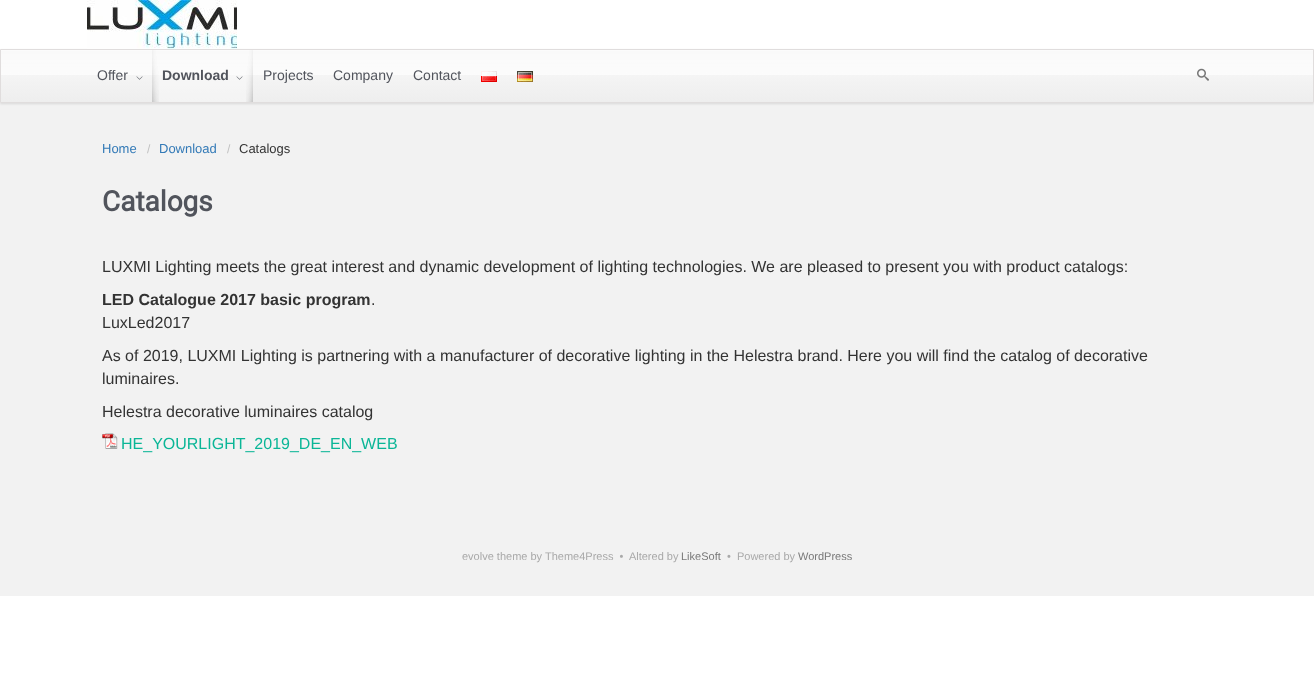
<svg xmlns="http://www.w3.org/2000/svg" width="1314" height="699">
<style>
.a{font:14px Liberation Sans;fill:#51545c}
.b{font:bold 14px Liberation Sans;fill:#51545c}
.c{font:13px Liberation Sans;fill:#337ab7}
.d{font:12px Liberation Sans;fill:#c2c2c2}
.e{font:13px Liberation Sans;fill:#333}
.f{font:bold 28px Roboto;fill:#51545c}
.g{font:16px Liberation Sans;fill:#333}
.h{font:bold 16px Liberation Sans;fill:#333}
.i{font:16px Liberation Sans;fill:#0bb697}
.j{font:11px Liberation Sans;fill:#a9a9a9}
.k{font:11px Liberation Sans;fill:#797979}
</style>
<rect width="100%" height="100%" fill="#fff"/>
<path fill="#f2f2f2" d="M0 103h1314v493H0z"/>
<path fill="#0000001a" filter="blur(1px)" d="M0 50h1314v54H0z"/>
<image href="1.png" x="87" y="0" width="150" height="49"/>
<image href="2.png" x="1" y="51" width="1312" height="51"/>
<path fill="#fbfbfb" d="M1 50h1312v1H1z"/>
<path fill="none" stroke="#e0dddd" d="M0.5 49.5h1313v53H0.5z"/>
<image href="3.png" x="136" y="76" width="7" height="4"/>
<path fill="#ffffff4d" d="M152 75h101v27H152z"/>
<image href="4.png" x="152" y="50" width="7" height="52"/>
<image href="5.png" x="236" y="76" width="7" height="4"/>
<image href="6.png" x="246" y="50" width="7" height="52"/>
<image href="7.png" x="481" y="71" width="16" height="11"/>
<image href="8.png" x="517" y="71" width="16" height="11"/>
<image href="9.png" x="1197" y="68" width="12" height="13"/>
<image href="10.png" x="102" y="433" width="16" height="16"/>
<text class="a" x="97" y="80">Offer</text>
<text class="b" x="162" y="80">Download</text>
<text class="a" x="263" y="80">Projects</text>
<text class="a" x="333" y="80">Company</text>
<text class="a" x="413" y="80">Contact</text>
<text class="c" x="102" y="153">Home</text>
<text class="d" x="147" y="153">/</text>
<text class="c" x="159" y="153">Download</text>
<text class="d" x="227" y="153">/</text>
<text class="e" x="239" y="153">Catalogs</text>
<text class="f" x="102" y="211">Catalogs</text>
<text class="g" x="102" y="272">LUXMI Lighting meets the great interest and dynamic development of lighting technologies. We are pleased to present you with product catalogs:</text>
<text class="h" x="102" y="305">LED Catalogue 2017 basic program</text>
<text class="g" x="371" y="305">.</text>
<text class="g" x="102" y="328">LuxLed2017</text>
<text class="g" x="102" y="361">As of 2019, LUXMI Lighting is partnering with a manufacturer of decorative lighting in the Helestra brand. Here you will find the catalog of decorative</text>
<text class="g" x="102" y="384">luminaires.</text>
<text class="g" x="102" y="417">Helestra decorative luminaires catalog</text>
<text class="i" x="121" y="449">HE_YOURLIGHT_2019_DE_EN_WEB</text>
<text class="j" xml:space="preserve" x="462" y="560">evolve theme by Theme4Press  •  Altered by</text>
<text class="k" x="681" y="560">LikeSoft</text>
<text class="j" xml:space="preserve" x="727" y="560">•  Powered by</text>
<text class="k" x="798" y="560">WordPress</text>
</svg>
